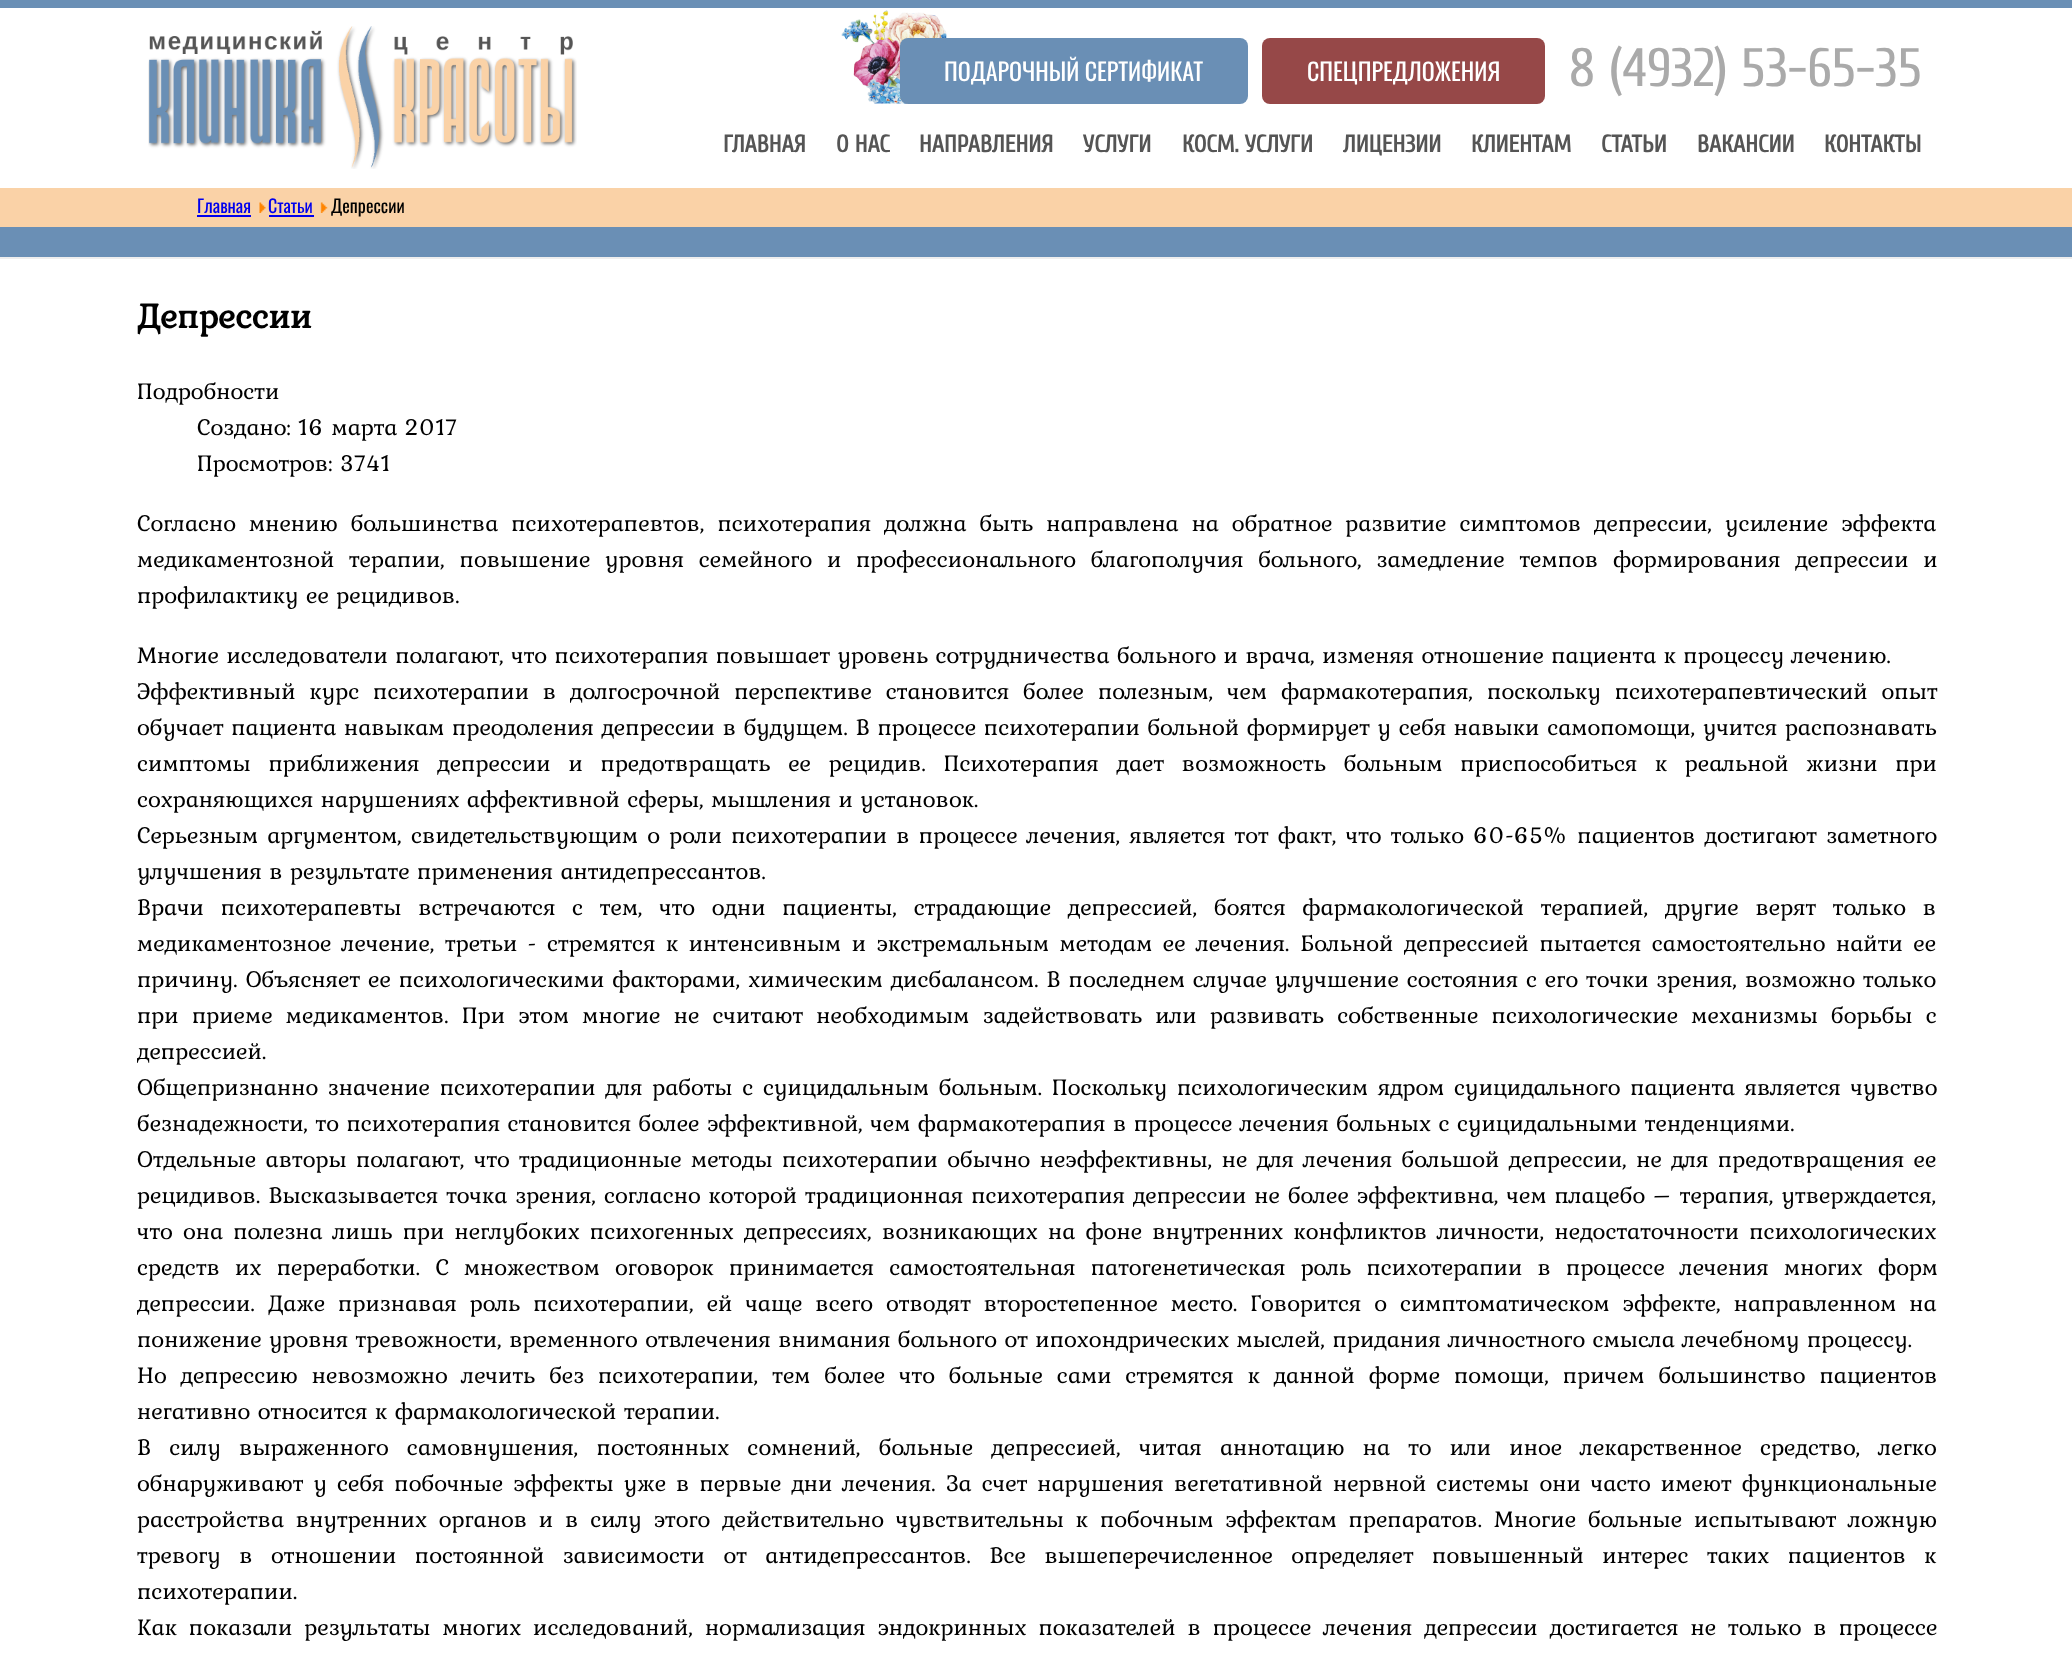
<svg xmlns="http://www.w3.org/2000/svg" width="2072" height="1667">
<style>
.a{font:24px Oswald;fill:#fff}
.b{font:54px Cuprum;fill:#aaa}
.c{font:bold 24px Cuprum;fill:#555}
.d{font:18px Oswald;fill:#00e}
.e{font:18px Oswald;fill:#000}
.f{font:bold 36px Kurale;fill:#000}
.g{font:24px Kurale;fill:#000}
</style>
<rect width="100%" height="100%" fill="#fff"/>
<path fill="#6a8fb5" d="M0 0h2072v8H0z"/>
<image href="1.png" x="148" y="26" width="429" height="143"/>
<image href="2.png" x="841" y="10" width="106" height="94"/>
<rect fill="#6a8fb5" x="900" y="38" width="348" height="66" rx="8"/>
<rect fill="#964848" x="1262" y="38" width="283" height="66" rx="8"/>
<path fill="#fad2a7" d="M0 188h2072v39H0z"/>
<path fill="#00e" d="M197 215h54v2H197z"/>
<image href="3.png" x="259" y="202" width="7" height="11"/>
<path fill="#00e" d="M269 215h45v2H269z"/>
<image href="4.png" x="320" y="202" width="8" height="11"/>
<path fill="#6a8fb5" d="M0 227h2072v30H0z"/>
<path fill="#eee" d="M0 257h2072v2H0z"/>
<text class="a" x="944" y="81">ПОДАРОЧНЫЙ СЕРТИФИКАТ</text>
<text class="a" x="1307" y="81">СПЕЦПРЕДЛОЖЕНИЯ</text>
<text class="b" x="1569" y="86">8 (4932) 53-65-35</text>
<text class="c" x="723" y="152">ГЛАВНАЯ</text>
<text class="c" x="836" y="152">О НАС</text>
<text class="c" x="919" y="152">НАПРАВЛЕНИЯ</text>
<text class="c" x="1083" y="152">УСЛУГИ</text>
<text class="c" x="1182" y="152">КОСМ. УСЛУГИ</text>
<text class="c" x="1343" y="152">ЛИЦЕНЗИИ</text>
<text class="c" x="1471" y="152">КЛИЕНТАМ</text>
<text class="c" x="1601" y="152">СТАТЬИ</text>
<text class="c" x="1697" y="152">ВАКАНСИИ</text>
<text class="c" x="1824" y="152">КОНТАКТЫ</text>
<text class="d" x="197" y="213">Главная</text>
<text class="d" x="268" y="213">Статьи</text>
<text class="e" x="331" y="213">Депрессии</text>
<text class="f" x="137" y="328">Депрессии</text>
<text class="g" x="137" y="399">Подробности</text>
<text class="g" x="197" y="435">Создано: 16 марта 2017</text>
<text class="g" x="197" y="471">Просмотров: 3741</text>
<text class="g" x="137" y="531" word-spacing="5.5">Согласно мнению большинства психотерапевтов, психотерапия должна быть направлена на обратное развитие симптомов депрессии, усиление эффекта</text>
<text class="g" x="137" y="567" word-spacing="7.25">медикаментозной терапии, повышение уровня семейного и профессионального благополучия больного, замедление темпов формирования депрессии и</text>
<text class="g" x="137" y="603">профилактику ее рецидивов.</text>
<text class="g" x="137" y="663">Многие исследователи полагают, что психотерапия повышает уровень сотрудничества больного и врача, изменяя отношение пациента к процессу лечению.</text>
<text class="g" x="137" y="699" word-spacing="6.4">Эффективный курс психотерапии в долгосрочной перспективе становится более полезным, чем фармакотерапия, поскольку психотерапевтический опыт</text>
<text class="g" x="137" y="735" word-spacing="0.25">обучает пациента навыкам преодоления депрессии в будущем. В процессе психотерапии больной формирует у себя навыки самопомощи, учится распознавать</text>
<text class="g" x="137" y="771" word-spacing="10.25">симптомы приближения депрессии и предотвращать ее рецидив. Психотерапия дает возможность больным приспособиться к реальной жизни при</text>
<text class="g" x="137" y="807">сохраняющихся нарушениях аффективной сферы, мышления и установок.</text>
<text class="g" x="137" y="843" word-spacing="1.75">Серьезным аргументом, свидетельствующим о роли психотерапии в процессе лечения, является тот факт, что только 60-65% пациентов достигают заметного</text>
<text class="g" x="137" y="879">улучшения в результате применения антидепрессантов.</text>
<text class="g" x="137" y="915" word-spacing="9.25">Врачи психотерапевты встречаются с тем, что одни пациенты, страдающие депрессией, боятся фармакологической терапией, другие верят только в</text>
<text class="g" x="137" y="951" word-spacing="3.1">медикаментозное лечение, третьи - стремятся к интенсивным и экстремальным методам ее лечения. Больной депрессией пытается самостоятельно найти ее</text>
<text class="g" x="137" y="987" word-spacing="0.4">причину. Объясняет ее психологическими факторами, химическим дисбалансом. В последнем случае улучшение состояния с его точки зрения, возможно только</text>
<text class="g" x="137" y="1023" word-spacing="5.75">при приеме медикаментов. При этом многие не считают необходимым задействовать или развивать собственные психологические механизмы борьбы с</text>
<text class="g" x="137" y="1059">депрессией.</text>
<text class="g" x="137" y="1095" word-spacing="2.25">Общепризнанно значение психотерапии для работы с суицидальным больным. Поскольку психологическим ядром суицидального пациента является чувство</text>
<text class="g" x="137" y="1131">безнадежности, то психотерапия становится более эффективной, чем фармакотерапия в процессе лечения больных с суицидальными тенденциями.</text>
<text class="g" x="137" y="1167" word-spacing="1.9">Отдельные авторы полагают, что традиционные методы психотерапии обычно неэффективны, не для лечения большой депрессии, не для предотвращения ее</text>
<text class="g" x="137" y="1203" word-spacing="0.5">рецидивов. Высказывается точка зрения, согласно которой традиционная психотерапия депрессии не более эффективна, чем плацебо – терапия, утверждается,</text>
<text class="g" x="137" y="1239" word-spacing="2.75">что она полезна лишь при неглубоких психогенных депрессиях, возникающих на фоне внутренних конфликтов личности, недостаточности психологических</text>
<text class="g" x="137" y="1275" word-spacing="7.75">средств их переработки. С множеством оговорок принимается самостоятельная патогенетическая роль психотерапии в процессе лечения многих форм</text>
<text class="g" x="137" y="1311" word-spacing="5.5">депрессии. Даже признавая роль психотерапии, ей чаще всего отводят второстепенное место. Говорится о симптоматическом эффекте, направленном на</text>
<text class="g" x="137" y="1347">понижение уровня тревожности, временного отвлечения внимания больного от ипохондрических мыслей, придания личностного смысла лечебному процессу.</text>
<text class="g" x="137" y="1383" word-spacing="6.4">Но депрессию невозможно лечить без психотерапии, тем более что больные сами стремятся к данной форме помощи, причем большинство пациентов</text>
<text class="g" x="137" y="1419">негативно относится к фармакологической терапии.</text>
<text class="g" x="137" y="1455" word-spacing="10.75">В силу выраженного самовнушения, постоянных сомнений, больные депрессией, читая аннотацию на то или иное лекарственное средство, легко</text>
<text class="g" x="137" y="1491" word-spacing="2.6">обнаруживают у себя побочные эффекты уже в первые дни лечения. За счет нарушения вегетативной нервной системы они часто имеют функциональные</text>
<text class="g" x="137" y="1527" word-spacing="4.4">расстройства внутренних органов и в силу этого действительно чувствительны к побочным эффектам препаратов. Многие больные испытывают ложную</text>
<text class="g" x="137" y="1563" word-spacing="11">тревогу в отношении постоянной зависимости от антидепрессантов. Все вышеперечисленное определяет повышенный интерес таких пациентов к</text>
<text class="g" x="137" y="1599">психотерапии.</text>
<text class="g" x="137" y="1635" word-spacing="4.5">Как показали результаты многих исследований, нормализация эндокринных показателей в процессе лечения депрессии достигается не только в процессе</text>
</svg>
